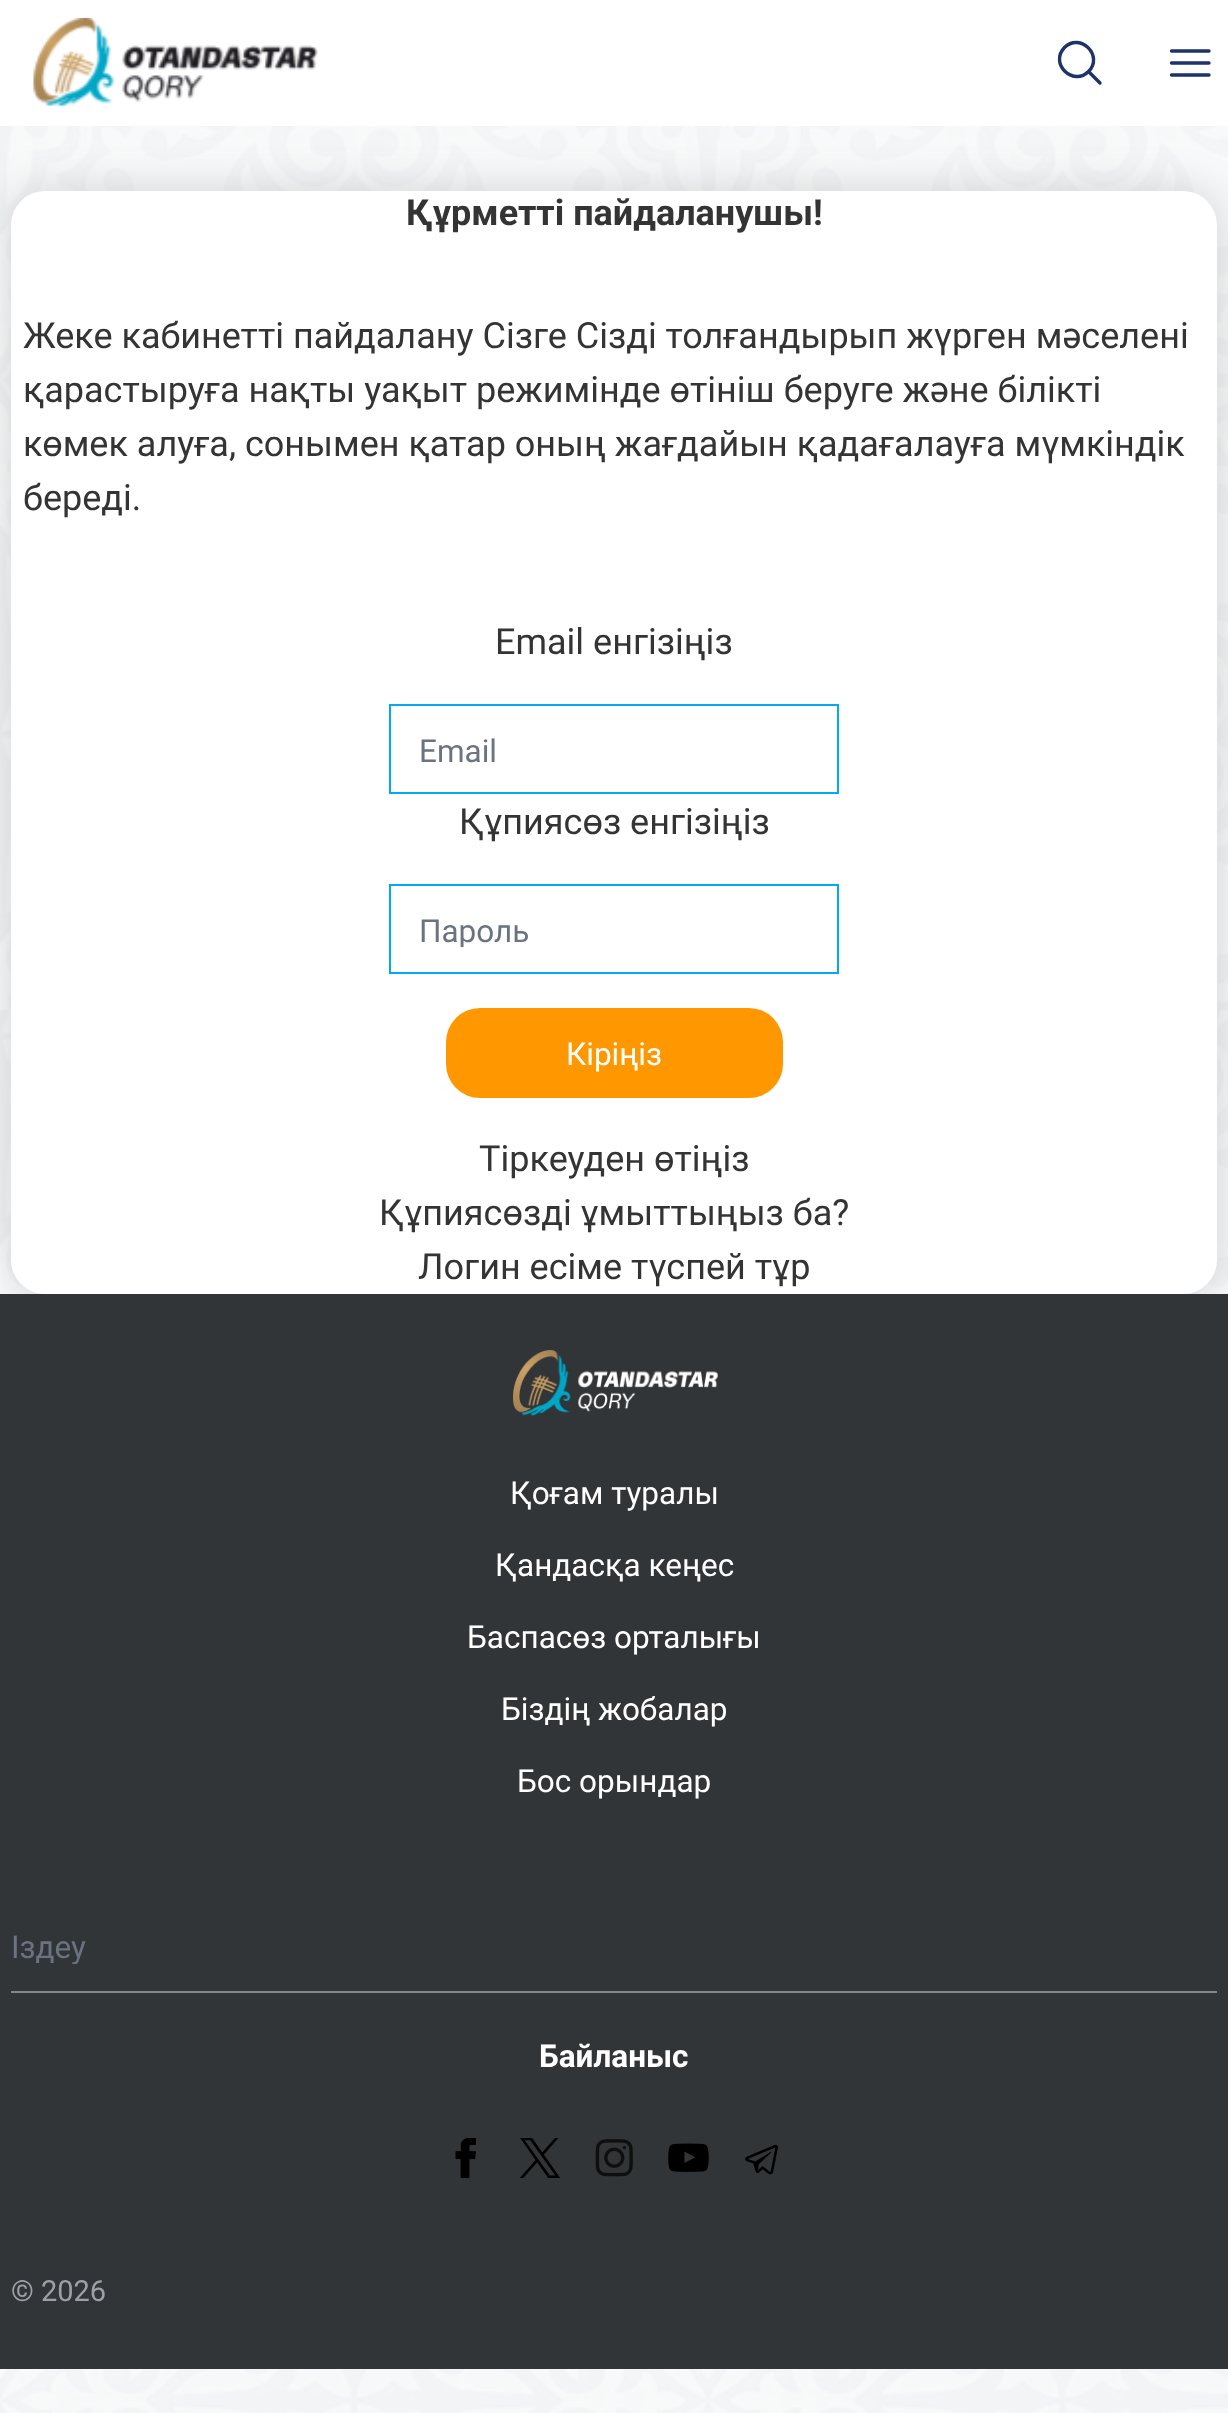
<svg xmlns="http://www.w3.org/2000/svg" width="1228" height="2413">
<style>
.a{font:bold 36px Roboto;fill:#343434}
.b{font:36px Roboto;fill:#343434}
.c{font:31.5px Roboto;fill:#6b7280}
.d{font:31.5px Roboto;fill:#fff}
.e{font:bold 31.5px Roboto;fill:#fff}
.f{font:29px Roboto;fill:#9ca1a8}
</style>
<defs>
<clipPath id="clip1"><path d="M419 911h391v36H419z"/></clipPath>
<clipPath id="clip2"><path d="M11 1928h1150v36H11z"/></clipPath>
</defs>
<rect width="100%" height="100%" fill="#fff"/>
<image href="1.png" x="0" y="126" width="1228" height="2287"/>
<image href="2.png" x="33" y="18" width="285" height="88"/>
<path fill="none" stroke="#1c3467" stroke-width="3.4" stroke-linecap="round" stroke-linejoin="round" d="M1100 83l-11.5-11.5m0 0c15.5-15.5-8-39.5-24-24c-15.5 16 8.5 39.5 24 24z"/>
<path fill="none" stroke="#1c3467" stroke-width="3.4" stroke-linecap="round" stroke-linejoin="round" d="M1171.5 51h37.5m-37.5 12h37.5m-37.5 12h37.5"/>
<rect fill="#00000024" filter="blur(21.5px)" x="9" y="189" width="1211" height="1107" rx="36"/>
<rect fill="#fff" x="11" y="191" width="1206" height="1103" rx="34"/>
<path fill="none" stroke="#03a9f4" stroke-width="2" d="M390 705h448v88H390z"/>
<path fill="none" stroke="#03a9f4" stroke-width="2" d="M390 885h448v88H390z"/>
<rect fill="#ff9800" x="446" y="1008" width="337" height="90" rx="34"/>
<path fill="#323538" d="M0 1294h1228v1075H0z"/>
<image href="3.png" x="513" y="1350" width="205" height="66"/>
<path fill="#858585" d="M11 1991h1206v2H11z"/>
<image href="4.png" x="455" y="2138" width="21" height="40"/>
<image href="5.png" x="520" y="2138" width="40" height="40"/>
<image href="6.png" x="595" y="2139" width="38" height="38"/>
<image href="7.png" x="668" y="2143" width="41" height="29"/>
<image href="8.png" x="745" y="2144" width="33" height="31"/>
<text class="a" x="406" y="225">Құрметті пайдаланушы!</text>
<text class="b" x="23" y="348">Жеке кабинетті пайдалану Сізге Сізді толғандырып жүрген мәселені</text>
<text class="b" x="23" y="402">қарастыруға нақты уақыт режимінде өтініш беруге және білікті</text>
<text class="b" x="23" y="456">көмек алуға, сонымен қатар оның жағдайын қадағалауға мүмкіндік</text>
<text class="b" x="23" y="510">береді.</text>
<text class="b" x="495" y="654">Email енгізіңіз</text>
<text class="c" x="419" y="762">Email</text>
<text class="b" x="459" y="834">Құпиясөз енгізіңіз</text>
<g clip-path="url(#clip1)">
<text class="c" x="419" y="942">Пароль</text>
</g>
<text class="d" x="566" y="1065">Кіріңіз</text>
<text class="b" x="479" y="1171">Тіркеуден өтіңіз</text>
<text class="b" x="379" y="1225">Құпиясөзді ұмыттыңыз ба?</text>
<text class="b" x="418" y="1279">Логин есіме түспей тұр</text>
<text class="d" x="510" y="1504">Қоғам туралы</text>
<text class="d" x="495" y="1576">Қандасқа кеңес</text>
<text class="d" x="467" y="1648">Баспасөз орталығы</text>
<text class="d" x="501" y="1720">Біздің жобалар</text>
<text class="d" x="517" y="1792">Бос орындар</text>
<g clip-path="url(#clip2)">
<text class="c" x="11" y="1958">Іздеу</text>
</g>
<text class="e" x="539" y="2067">Байланыс</text>
<text class="f" x="11" y="2301">© 2026</text>
</svg>
